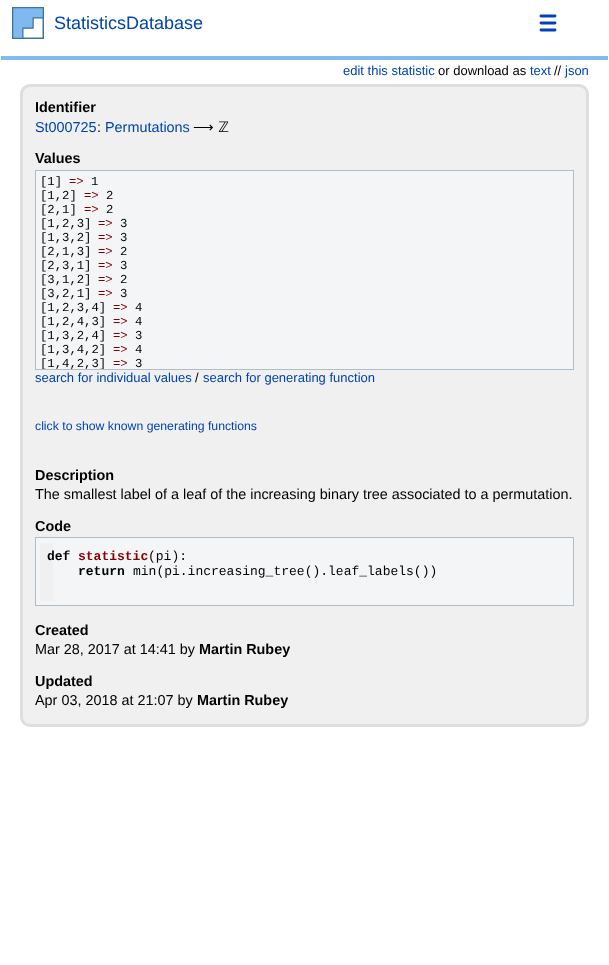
<svg xmlns="http://www.w3.org/2000/svg" width="609" height="965">
	<defs>
		<clipPath id="clip1"><rect x="36" y="171" width="537" height="198" /></clipPath>
	</defs>
	<rect width="100%" height="100%" fill="#FFFFFF" />
	<rect x="1" y="56" width="607" height="4" fill="#81BBF2" />
	<image x="12" y="7" width="32" height="32" href="assets/img1.png" />
	<text x="54" y="29" font-family="Liberation Sans" font-size="18" fill="#0044B3">StatisticsDatabase</text>
	<path d="M541 16H555M541 23H555M541 30H555" fill="none" stroke="#0044B3" stroke-width="2.9" stroke-linecap="round" />
	<text x="343" y="75" font-family="Liberation Sans" font-size="13" fill="#0044B3">edit this statistic</text>
	<text x="438" y="75" font-family="Liberation Sans" font-size="13" fill="#000000">or download as</text>
	<text x="530" y="75" font-family="Liberation Sans" font-size="13" fill="#0044B3">text</text>
	<text x="554" y="75" font-family="Liberation Sans" font-size="13" fill="#000000">//</text>
	<text x="565" y="75" font-family="Liberation Sans" font-size="13" fill="#0044B3">json</text>
	<rect x="21.5" y="85.5" width="566" height="640" rx="8.5" fill="#F0F0F0" stroke="#DEDEDE" stroke-width="3" />
	<text x="35" y="112" font-family="Liberation Sans" font-size="14.4" font-weight="700" fill="#000000">Identifier</text>
	<text x="35" y="132" font-family="Liberation Sans" font-size="14.4" fill="#0044B3">St000725</text>
	<text x="97" y="132" font-family="Liberation Sans" font-size="14.4" fill="#000000">:</text>
	<text x="105" y="132" font-family="Liberation Sans" font-size="14.4" fill="#0044B3">Permutations</text>
	<text x="193" y="132" font-family="DejaVu Sans" font-size="14.4" fill="#000000">⟶ ℤ</text>
	<text x="35" y="163" font-family="Liberation Sans" font-size="14.4" font-weight="700" fill="#000000">Values</text>
	<rect x="35.5" y="170.5" width="538" height="199" fill="#F3F5F7" stroke="#AEBDCC" />
	<text x="40" y="185" font-family="Liberation Mono" font-size="12.25" fill="#000000">[1]</text>
	<text x="69" y="185" font-family="Liberation Mono" font-size="12.25" fill="#800000">=&gt;</text>
	<g font-family="Liberation Mono" font-size="12.25" fill="#000000">
		<text x="91" y="185">1</text>
		<text x="40" y="199">[1,2]</text>
	</g>
	<text x="84" y="199" font-family="Liberation Mono" font-size="12.25" fill="#800000">=&gt;</text>
	<g font-family="Liberation Mono" font-size="12.25" fill="#000000">
		<text x="106" y="199">2</text>
		<text x="40" y="213">[2,1]</text>
	</g>
	<text x="84" y="213" font-family="Liberation Mono" font-size="12.25" fill="#800000">=&gt;</text>
	<g font-family="Liberation Mono" font-size="12.25" fill="#000000">
		<text x="106" y="213">2</text>
		<text x="40" y="227">[1,2,3]</text>
	</g>
	<text x="98" y="227" font-family="Liberation Mono" font-size="12.25" fill="#800000">=&gt;</text>
	<g font-family="Liberation Mono" font-size="12.25" fill="#000000">
		<text x="120" y="227">3</text>
		<text x="40" y="241">[1,3,2]</text>
	</g>
	<text x="98" y="241" font-family="Liberation Mono" font-size="12.25" fill="#800000">=&gt;</text>
	<g font-family="Liberation Mono" font-size="12.25" fill="#000000">
		<text x="120" y="241">3</text>
		<text x="40" y="255">[2,1,3]</text>
	</g>
	<text x="98" y="255" font-family="Liberation Mono" font-size="12.25" fill="#800000">=&gt;</text>
	<g font-family="Liberation Mono" font-size="12.25" fill="#000000">
		<text x="120" y="255">2</text>
		<text x="40" y="269">[2,3,1]</text>
	</g>
	<text x="98" y="269" font-family="Liberation Mono" font-size="12.25" fill="#800000">=&gt;</text>
	<g font-family="Liberation Mono" font-size="12.25" fill="#000000">
		<text x="120" y="269">3</text>
		<text x="40" y="283">[3,1,2]</text>
	</g>
	<text x="98" y="283" font-family="Liberation Mono" font-size="12.25" fill="#800000">=&gt;</text>
	<g font-family="Liberation Mono" font-size="12.25" fill="#000000">
		<text x="120" y="283">2</text>
		<text x="40" y="297">[3,2,1]</text>
	</g>
	<text x="98" y="297" font-family="Liberation Mono" font-size="12.25" fill="#800000">=&gt;</text>
	<g font-family="Liberation Mono" font-size="12.25" fill="#000000">
		<text x="120" y="297">3</text>
		<text x="40" y="311">[1,2,3,4]</text>
	</g>
	<text x="113" y="311" font-family="Liberation Mono" font-size="12.25" fill="#800000">=&gt;</text>
	<g font-family="Liberation Mono" font-size="12.25" fill="#000000">
		<text x="135" y="311">4</text>
		<text x="40" y="325">[1,2,4,3]</text>
	</g>
	<text x="113" y="325" font-family="Liberation Mono" font-size="12.25" fill="#800000">=&gt;</text>
	<g font-family="Liberation Mono" font-size="12.25" fill="#000000">
		<text x="135" y="325">4</text>
		<text x="40" y="339">[1,3,2,4]</text>
	</g>
	<text x="113" y="339" font-family="Liberation Mono" font-size="12.25" fill="#800000">=&gt;</text>
	<g font-family="Liberation Mono" font-size="12.25" fill="#000000">
		<text x="135" y="339">3</text>
		<text x="40" y="353">[1,3,4,2]</text>
	</g>
	<text x="113" y="353" font-family="Liberation Mono" font-size="12.25" fill="#800000">=&gt;</text>
	<text x="135" y="353" font-family="Liberation Mono" font-size="12.25" fill="#000000">4</text>
	<g clip-path="url(#clip1)">
		<text x="40" y="367" font-family="Liberation Mono" font-size="12.25" fill="#000000">[1,4,2,3]</text>
	</g>
	<text x="113" y="367" font-family="Liberation Mono" font-size="12.25" fill="#800000">=&gt;</text>
	<text x="135" y="367" font-family="Liberation Mono" font-size="12.25" fill="#000000">3</text>
	<text x="35" y="382" font-family="Liberation Sans" font-size="13" fill="#0044B3">search for individual values</text>
	<text x="195" y="382" font-family="Liberation Sans" font-size="13" fill="#000000">/</text>
	<text x="203" y="382" font-family="Liberation Sans" font-size="13" fill="#0044B3">search for generating function</text>
	<text x="35" y="430" font-family="Liberation Sans" font-size="12.25" fill="#0044B3">click to show known generating functions</text>
	<text x="35" y="480" font-family="Liberation Sans" font-size="14.4" font-weight="700" fill="#000000">Description</text>
	<text x="35" y="499" font-family="Liberation Sans" font-size="14.4" fill="#000000">The smallest label of a leaf of the increasing binary tree associated to a permutation.</text>
	<text x="35" y="531" font-family="Liberation Sans" font-size="14.4" font-weight="700" fill="#000000">Code</text>
	<rect x="35.5" y="537.5" width="538" height="68" fill="#F3F5F7" stroke="#AEBDCC" />
	<rect x="40" y="543" width="13" height="58" fill="#F0F0F0" />
	<text x="47" y="560" font-family="Liberation Mono" font-size="13" font-weight="700" fill="#000000">def</text>
	<text x="78" y="560" font-family="Liberation Mono" font-size="13" font-weight="700" fill="#880000">statistic</text>
	<text x="148" y="560" font-family="Liberation Mono" font-size="13" fill="#000000">(pi):</text>
	<text x="78" y="575" font-family="Liberation Mono" font-size="13" font-weight="700" fill="#000000">return</text>
	<text x="133" y="575" font-family="Liberation Mono" font-size="13" fill="#000000">min(pi.increasing_tree().leaf_labels())</text>
	<text x="35" y="635" font-family="Liberation Sans" font-size="14.4" font-weight="700" fill="#000000">Created</text>
	<text x="35" y="654" font-family="Liberation Sans" font-size="14.4" fill="#000000">Mar 28, 2017 at 14:41 by</text>
	<g font-family="Liberation Sans" font-size="14.4" font-weight="700" fill="#000000">
		<text x="199" y="654">Martin Rubey</text>
		<text x="35" y="686">Updated</text>
	</g>
	<text x="35" y="705" font-family="Liberation Sans" font-size="14.4" fill="#000000">Apr 03, 2018 at 21:07 by</text>
	<text x="197" y="705" font-family="Liberation Sans" font-size="14.4" font-weight="700" fill="#000000">Martin Rubey</text>
</svg>
